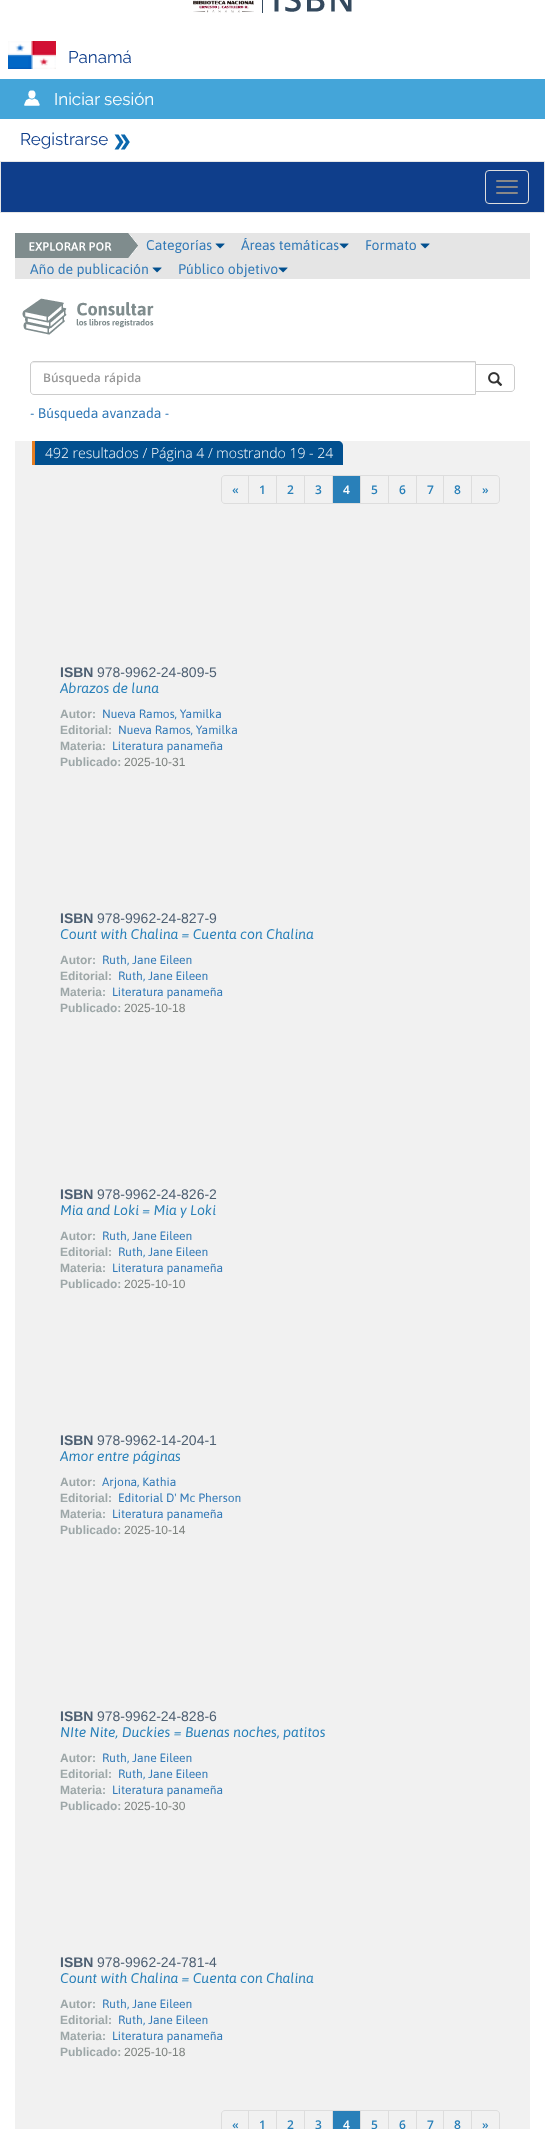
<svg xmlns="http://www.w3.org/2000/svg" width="545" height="2129">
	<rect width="100%" height="100%" fill="#FFFFFF" />
	<image x="193" y="0" width="61" height="13" href="assets/img1.png" />
	<image x="262" y="0" width="90" height="13" href="assets/img2.png" />
	<image x="8" y="41" width="48" height="28" href="assets/img3.png" />
	<text x="68" y="63" font-family="Raleway" font-size="17" font-weight="100" fill="#0F3E8B">Panamá</text>
	<rect x="0" y="79" width="545" height="40" fill="#44A5D9" />
	<image x="24" y="90" width="16" height="16" href="assets/img4.png" />
	<text x="54" y="105" font-family="Raleway" font-size="17" font-weight="100" fill="#FFFFFF">Iniciar sesión</text>
	<text x="20" y="145" font-family="Raleway" font-size="17" font-weight="100" fill="#0F3E8B">Registrarse</text>
	<image x="114" y="134" width="16" height="16" href="assets/img5.png" />
	<rect x="0.5" y="161.5" width="544" height="51" fill="#0F3E8B" stroke="#E7E7E7" />
	<rect x="485.5" y="170.5" width="43" height="33" rx="3.5" fill="none" stroke="#DDDDDD" />
	<rect x="496" y="180" width="22" height="2" rx="1" fill="#888888" />
	<rect x="496" y="186" width="22" height="2" rx="1" fill="#888888" />
	<rect x="496" y="192" width="22" height="2" rx="1" fill="#888888" />
	<rect x="15" y="233" width="515" height="46" fill="#E5E5E5" />
	<image x="15" y="233" width="123" height="25" href="assets/img6.png" />
	<text x="146" y="250" font-family="Asap" font-size="14" fill="#337AB7">Categorías</text>
	<image x="215" y="243" width="10" height="6" href="assets/img7.png" />
	<text x="241" y="250" font-family="Asap" font-size="14" fill="#337AB7">Áreas temáticas</text>
	<image x="339" y="243" width="10" height="6" href="assets/img7.png" />
	<text x="365" y="250" font-family="Asap" font-size="14" fill="#337AB7">Formato</text>
	<image x="420" y="243" width="10" height="6" href="assets/img7.png" />
	<text x="30" y="274" font-family="Asap" font-size="14" fill="#337AB7">Año de publicación</text>
	<image x="152" y="267" width="10" height="6" href="assets/img7.png" />
	<text x="178" y="274" font-family="Asap" font-size="14" fill="#337AB7">Público objetivo</text>
	<image x="278" y="267" width="10" height="6" href="assets/img7.png" />
	<image x="22" y="298" width="132" height="37" href="assets/img8.png" />
	<path d="M34 363H475V362H34C32 362 31 364 31 366C31 364 32 363 34 363Z" fill="#ECECEC" />
	<path d="M34 361.5H475.5V394.5H34C32 394.5 30.5 393 30.5 391V365C30.5 363 32 361.5 34 361.5Z" fill="none" stroke="#CCCCCC" />
	<text x="43" y="382" font-family="Open Sans" font-size="12" font-weight="600" fill="#999999">Búsqueda rápida</text>
	<path d="M475.5 364.5H511C513 364.5 514.5 366 514.5 368V388C514.5 390 513 391.5 511 391.5H475.5Z" fill="#FFFFFF" stroke="#CCCCCC" />
	<image x="488" y="372" width="15" height="14" href="assets/img9.png" />
	<text x="30" y="418" font-family="Asap" font-size="14" fill="#337AB7">- Búsqueda avanzada -</text>
	<rect x="15" y="441" width="515" height="1688" fill="#F1F1F1" />
	<path d="M32 441H338C341 441 343 443 343 446V465H32Z" fill="#02508F" />
	<text x="45" y="458" font-family="Open Sans" font-size="14" font-weight="300" fill="#FFFFFF">492 resultados / Página 4 / mostrando 19 - 24</text>
	<rect x="32" y="441" width="3" height="24" fill="#E67E22" />
	<path d="M225 475.5H248.5V503.5H225C223 503.5 221.5 502 221.5 500V479C221.5 477 223 475.5 225 475.5Z" fill="none" stroke="#DDDDDD" />
	<text x="232" y="494" font-family="Open Sans" font-size="12" font-weight="600" fill="#2980B9">«</text>
	<rect x="248.5" y="475.5" width="28" height="28" fill="none" stroke="#DDDDDD" />
	<text x="259" y="494" font-family="Open Sans" font-size="12" font-weight="600" fill="#2980B9">1</text>
	<rect x="276.5" y="475.5" width="28" height="28" fill="none" stroke="#DDDDDD" />
	<text x="287" y="494" font-family="Open Sans" font-size="12" font-weight="600" fill="#2980B9">2</text>
	<rect x="304.5" y="475.5" width="28" height="28" fill="none" stroke="#DDDDDD" />
	<text x="315" y="494" font-family="Open Sans" font-size="12" font-weight="600" fill="#2980B9">3</text>
	<rect x="332.5" y="475.5" width="28" height="28" fill="#2980B9" stroke="#DDDDDD" />
	<text x="343" y="494" font-family="Open Sans" font-size="12" font-weight="600" fill="#FFFFFF">4</text>
	<rect x="360.5" y="475.5" width="28" height="28" fill="none" stroke="#DDDDDD" />
	<text x="371" y="494" font-family="Open Sans" font-size="12" font-weight="600" fill="#2980B9">5</text>
	<rect x="388.5" y="475.5" width="28" height="28" fill="none" stroke="#DDDDDD" />
	<text x="399" y="494" font-family="Open Sans" font-size="12" font-weight="600" fill="#2980B9">6</text>
	<rect x="416.5" y="475.5" width="27" height="28" fill="none" stroke="#DDDDDD" />
	<text x="427" y="494" font-family="Open Sans" font-size="12" font-weight="600" fill="#2980B9">7</text>
	<rect x="443.5" y="475.5" width="28" height="28" fill="none" stroke="#DDDDDD" />
	<text x="454" y="494" font-family="Open Sans" font-size="12" font-weight="600" fill="#2980B9">8</text>
	<path d="M471.5 475.5H496C498 475.5 499.5 477 499.5 479V500C499.5 502 498 503.5 496 503.5H471.5Z" fill="none" stroke="#DDDDDD" />
	<text x="482" y="494" font-family="Open Sans" font-size="12" font-weight="600" fill="#2980B9">»</text>
	<text x="60" y="677" font-family="Liberation Sans" font-size="14" font-weight="700" fill="#4D5F72">ISBN</text>
	<text x="97" y="677" font-family="Liberation Sans" font-size="14" fill="#4D5F72">978-9962-24-809-5</text>
	<text x="60" y="693" font-family="Asap" font-size="14" font-style="italic" fill="#2980B9">Abrazos de luna</text>
	<text x="60" y="718" font-family="Liberation Sans" font-size="12" font-weight="700" fill="#9DA7A8">Autor:</text>
	<text x="102" y="718" font-family="Asap" font-size="12" fill="#337AB7">Nueva Ramos, Yamilka</text>
	<text x="60" y="734" font-family="Liberation Sans" font-size="12" font-weight="700" fill="#9DA7A8">Editorial:</text>
	<text x="118" y="734" font-family="Asap" font-size="12" fill="#337AB7">Nueva Ramos, Yamilka</text>
	<text x="60" y="750" font-family="Liberation Sans" font-size="12" font-weight="700" fill="#9DA7A8">Materia:</text>
	<text x="112" y="750" font-family="Asap" font-size="12" fill="#337AB7">Literatura panameña</text>
	<text x="60" y="766" font-family="Liberation Sans" font-size="12" font-weight="700" fill="#9DA7A8">Publicado:</text>
	<text x="124" y="766" font-family="Liberation Sans" font-size="12" fill="#7C807D">2025-10-31</text>
	<text x="60" y="923" font-family="Liberation Sans" font-size="14" font-weight="700" fill="#4D5F72">ISBN</text>
	<text x="97" y="923" font-family="Liberation Sans" font-size="14" fill="#4D5F72">978-9962-24-827-9</text>
	<text x="60" y="939" font-family="Asap" font-size="14" font-style="italic" fill="#2980B9">Count with Chalina = Cuenta con Chalina</text>
	<text x="60" y="964" font-family="Liberation Sans" font-size="12" font-weight="700" fill="#9DA7A8">Autor:</text>
	<text x="102" y="964" font-family="Asap" font-size="12" fill="#337AB7">Ruth, Jane Eileen</text>
	<text x="60" y="980" font-family="Liberation Sans" font-size="12" font-weight="700" fill="#9DA7A8">Editorial:</text>
	<text x="118" y="980" font-family="Asap" font-size="12" fill="#337AB7">Ruth, Jane Eileen</text>
	<text x="60" y="996" font-family="Liberation Sans" font-size="12" font-weight="700" fill="#9DA7A8">Materia:</text>
	<text x="112" y="996" font-family="Asap" font-size="12" fill="#337AB7">Literatura panameña</text>
	<text x="60" y="1012" font-family="Liberation Sans" font-size="12" font-weight="700" fill="#9DA7A8">Publicado:</text>
	<text x="124" y="1012" font-family="Liberation Sans" font-size="12" fill="#7C807D">2025-10-18</text>
	<text x="60" y="1199" font-family="Liberation Sans" font-size="14" font-weight="700" fill="#4D5F72">ISBN</text>
	<text x="97" y="1199" font-family="Liberation Sans" font-size="14" fill="#4D5F72">978-9962-24-826-2</text>
	<text x="60" y="1215" font-family="Asap" font-size="14" font-style="italic" fill="#2980B9">Mia and Loki = Mia y Loki</text>
	<text x="60" y="1240" font-family="Liberation Sans" font-size="12" font-weight="700" fill="#9DA7A8">Autor:</text>
	<text x="102" y="1240" font-family="Asap" font-size="12" fill="#337AB7">Ruth, Jane Eileen</text>
	<text x="60" y="1256" font-family="Liberation Sans" font-size="12" font-weight="700" fill="#9DA7A8">Editorial:</text>
	<text x="118" y="1256" font-family="Asap" font-size="12" fill="#337AB7">Ruth, Jane Eileen</text>
	<text x="60" y="1272" font-family="Liberation Sans" font-size="12" font-weight="700" fill="#9DA7A8">Materia:</text>
	<text x="112" y="1272" font-family="Asap" font-size="12" fill="#337AB7">Literatura panameña</text>
	<text x="60" y="1288" font-family="Liberation Sans" font-size="12" font-weight="700" fill="#9DA7A8">Publicado:</text>
	<text x="124" y="1288" font-family="Liberation Sans" font-size="12" fill="#7C807D">2025-10-10</text>
	<text x="60" y="1445" font-family="Liberation Sans" font-size="14" font-weight="700" fill="#4D5F72">ISBN</text>
	<text x="97" y="1445" font-family="Liberation Sans" font-size="14" fill="#4D5F72">978-9962-14-204-1</text>
	<text x="60" y="1461" font-family="Asap" font-size="14" font-style="italic" fill="#2980B9">Amor entre páginas</text>
	<text x="60" y="1486" font-family="Liberation Sans" font-size="12" font-weight="700" fill="#9DA7A8">Autor:</text>
	<text x="102" y="1486" font-family="Asap" font-size="12" fill="#337AB7">Arjona, Kathia</text>
	<text x="60" y="1502" font-family="Liberation Sans" font-size="12" font-weight="700" fill="#9DA7A8">Editorial:</text>
	<text x="118" y="1502" font-family="Asap" font-size="12" fill="#337AB7">Editorial D' Mc Pherson</text>
	<text x="60" y="1518" font-family="Liberation Sans" font-size="12" font-weight="700" fill="#9DA7A8">Materia:</text>
	<text x="112" y="1518" font-family="Asap" font-size="12" fill="#337AB7">Literatura panameña</text>
	<text x="60" y="1534" font-family="Liberation Sans" font-size="12" font-weight="700" fill="#9DA7A8">Publicado:</text>
	<text x="124" y="1534" font-family="Liberation Sans" font-size="12" fill="#7C807D">2025-10-14</text>
	<text x="60" y="1721" font-family="Liberation Sans" font-size="14" font-weight="700" fill="#4D5F72">ISBN</text>
	<text x="97" y="1721" font-family="Liberation Sans" font-size="14" fill="#4D5F72">978-9962-24-828-6</text>
	<text x="60" y="1737" font-family="Asap" font-size="14" font-style="italic" fill="#2980B9">NIte Nite, Duckies = Buenas noches, patitos</text>
	<text x="60" y="1762" font-family="Liberation Sans" font-size="12" font-weight="700" fill="#9DA7A8">Autor:</text>
	<text x="102" y="1762" font-family="Asap" font-size="12" fill="#337AB7">Ruth, Jane Eileen</text>
	<text x="60" y="1778" font-family="Liberation Sans" font-size="12" font-weight="700" fill="#9DA7A8">Editorial:</text>
	<text x="118" y="1778" font-family="Asap" font-size="12" fill="#337AB7">Ruth, Jane Eileen</text>
	<text x="60" y="1794" font-family="Liberation Sans" font-size="12" font-weight="700" fill="#9DA7A8">Materia:</text>
	<text x="112" y="1794" font-family="Asap" font-size="12" fill="#337AB7">Literatura panameña</text>
	<text x="60" y="1810" font-family="Liberation Sans" font-size="12" font-weight="700" fill="#9DA7A8">Publicado:</text>
	<text x="124" y="1810" font-family="Liberation Sans" font-size="12" fill="#7C807D">2025-10-30</text>
	<text x="60" y="1967" font-family="Liberation Sans" font-size="14" font-weight="700" fill="#4D5F72">ISBN</text>
	<text x="97" y="1967" font-family="Liberation Sans" font-size="14" fill="#4D5F72">978-9962-24-781-4</text>
	<text x="60" y="1983" font-family="Asap" font-size="14" font-style="italic" fill="#2980B9">Count with Chalina = Cuenta con Chalina</text>
	<text x="60" y="2008" font-family="Liberation Sans" font-size="12" font-weight="700" fill="#9DA7A8">Autor:</text>
	<text x="102" y="2008" font-family="Asap" font-size="12" fill="#337AB7">Ruth, Jane Eileen</text>
	<text x="60" y="2024" font-family="Liberation Sans" font-size="12" font-weight="700" fill="#9DA7A8">Editorial:</text>
	<text x="118" y="2024" font-family="Asap" font-size="12" fill="#337AB7">Ruth, Jane Eileen</text>
	<text x="60" y="2040" font-family="Liberation Sans" font-size="12" font-weight="700" fill="#9DA7A8">Materia:</text>
	<text x="112" y="2040" font-family="Asap" font-size="12" fill="#337AB7">Literatura panameña</text>
	<text x="60" y="2056" font-family="Liberation Sans" font-size="12" font-weight="700" fill="#9DA7A8">Publicado:</text>
	<text x="124" y="2056" font-family="Liberation Sans" font-size="12" fill="#7C807D">2025-10-18</text>
	<path d="M225 2110.5H248.5V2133.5H225C223 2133.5 221.5 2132 221.5 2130V2114C221.5 2112 223 2110.5 225 2110.5Z" fill="none" stroke="#DDDDDD" />
	<text x="232" y="2129" font-family="Open Sans" font-size="12" font-weight="600" fill="#2980B9">«</text>
	<rect x="248.5" y="2110.5" width="28" height="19" fill="none" stroke="#DDDDDD" />
	<text x="259" y="2129" font-family="Open Sans" font-size="12" font-weight="600" fill="#2980B9">1</text>
	<rect x="276.5" y="2110.5" width="28" height="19" fill="none" stroke="#DDDDDD" />
	<text x="287" y="2129" font-family="Open Sans" font-size="12" font-weight="600" fill="#2980B9">2</text>
	<rect x="304.5" y="2110.5" width="28" height="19" fill="none" stroke="#DDDDDD" />
	<text x="315" y="2129" font-family="Open Sans" font-size="12" font-weight="600" fill="#2980B9">3</text>
	<rect x="332.5" y="2110.5" width="28" height="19" fill="#2980B9" stroke="#DDDDDD" />
	<text x="343" y="2129" font-family="Open Sans" font-size="12" font-weight="600" fill="#FFFFFF">4</text>
	<rect x="360.5" y="2110.5" width="28" height="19" fill="none" stroke="#DDDDDD" />
	<text x="371" y="2129" font-family="Open Sans" font-size="12" font-weight="600" fill="#2980B9">5</text>
	<rect x="388.5" y="2110.5" width="28" height="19" fill="none" stroke="#DDDDDD" />
	<text x="399" y="2129" font-family="Open Sans" font-size="12" font-weight="600" fill="#2980B9">6</text>
	<rect x="416.5" y="2110.5" width="27" height="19" fill="none" stroke="#DDDDDD" />
	<text x="427" y="2129" font-family="Open Sans" font-size="12" font-weight="600" fill="#2980B9">7</text>
	<rect x="443.5" y="2110.5" width="28" height="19" fill="none" stroke="#DDDDDD" />
	<text x="454" y="2129" font-family="Open Sans" font-size="12" font-weight="600" fill="#2980B9">8</text>
	<path d="M471.5 2110.5H496C498 2110.5 499.5 2112 499.5 2114V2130C499.5 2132 498 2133.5 496 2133.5H471.5Z" fill="none" stroke="#DDDDDD" />
	<text x="482" y="2129" font-family="Open Sans" font-size="12" font-weight="600" fill="#2980B9">»</text>
</svg>
